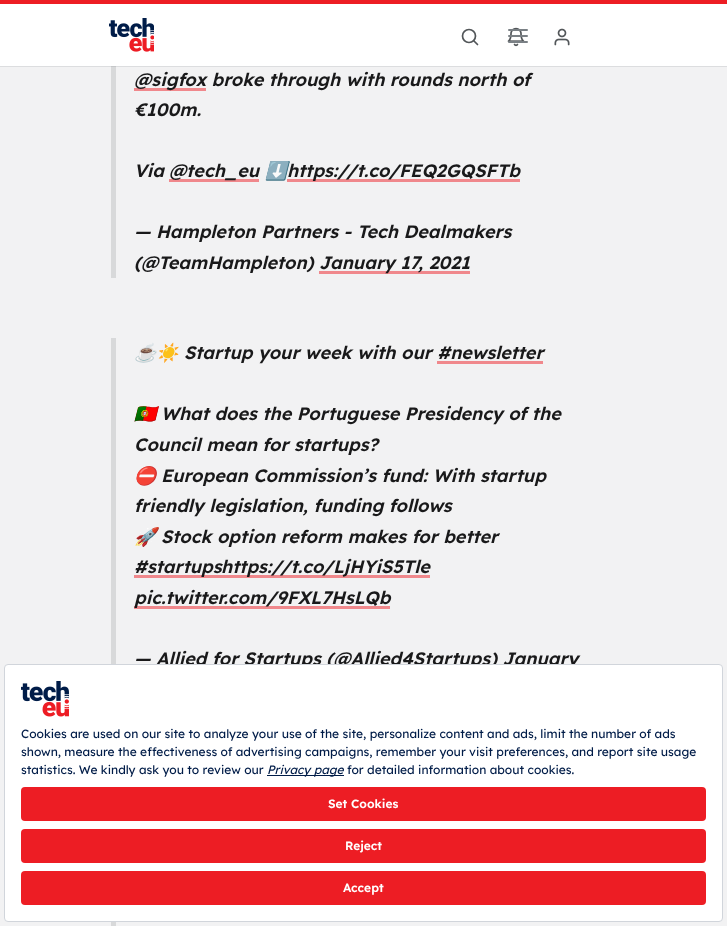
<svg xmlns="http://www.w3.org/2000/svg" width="727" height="926">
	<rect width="100%" height="100%" fill="#F2F2F3" />
	<rect x="0" y="66" width="727" height="1" fill="#DCDDDF" />
	<rect x="0" y="4" width="727" height="62" fill="#FFFFFF" />
	<rect x="0" y="0" width="727" height="4" fill="#ED1D24" />
	<image x="109" y="18" width="45" height="34" href="assets/img1.png" />
	<image x="507" y="27" width="18" height="20" href="assets/img2.png" />
	<rect x="508" y="29" width="20" height="2" rx="1" fill="#7A8085" />
	<rect x="508" y="35" width="20" height="2" rx="1" fill="#7A8085" />
	<rect x="508" y="41" width="20" height="2" rx="1" fill="#7A8085" />
	<circle cx="469" cy="36" r="6.5" fill="none" stroke="#525659" stroke-width="1.7" />
	<path d="M477.5 44.5L474 41" fill="none" stroke="#525659" stroke-width="1.7" stroke-linecap="round" stroke-linejoin="round" />
	<image x="554" y="28" width="16" height="18" href="assets/img3.png" />
	<rect x="111" y="67" width="5" height="211" fill="#D8D9DA" />
	<rect x="111" y="66" width="5" height="1" fill="#C5C7C9" />
	<rect x="134" y="88" width="72" height="3" fill="#F0888C" />
	<g font-family="Lexend Deca" font-size="18" font-weight="600" font-style="italic" fill="#19191A">
		<text x="134" y="86">@sigfox broke through with rounds north of</text>
		<text x="134" y="116">€100m.</text>
		<text x="134" y="177">Via</text>
	</g>
	<rect x="169" y="179" width="90" height="3" fill="#F0888C" />
	<text x="169" y="177" font-family="Lexend Deca" font-size="18" font-weight="600" font-style="italic" fill="#19191A">@tech_eu</text>
	<text x="265" y="177" font-family="Noto Color Emoji" font-size="18" font-weight="700" font-style="italic" fill="#19191A">⬇️</text>
	<rect x="287" y="179" width="233" height="3" fill="#F0888C" />
	<g font-family="Lexend Deca" font-size="18" font-weight="600" font-style="italic" fill="#19191A">
		<text x="287" y="177">https://t.co/FEQ2GQSFTb</text>
		<text x="134" y="238">— Hampleton Partners - Tech Dealmakers</text>
		<text x="134" y="269">(@TeamHampleton)</text>
	</g>
	<rect x="319" y="271" width="151" height="3" fill="#F0888C" />
	<text x="319" y="269" font-family="Lexend Deca" font-size="18" font-weight="600" font-style="italic" fill="#19191A">January 17, 2021</text>
	<rect x="111" y="338" width="5" height="326" fill="#D8D9DA" />
	<text x="134" y="359" font-family="Noto Color Emoji" font-size="18" font-weight="700" font-style="italic" fill="#19191A">☕☀️</text>
	<text x="184" y="359" font-family="Lexend Deca" font-size="18" font-weight="600" font-style="italic" fill="#19191A">Startup your week with our #newsletter</text>
	<rect x="437" y="361" width="106" height="3" fill="#F0888C" />
	<text x="134" y="420" font-family="Noto Color Emoji" font-size="18" font-weight="700" font-style="italic" fill="#19191A">🇵🇹</text>
	<g font-family="Lexend Deca" font-size="18" font-weight="600" font-style="italic" fill="#19191A">
		<text x="161" y="420">What does the Portuguese Presidency of the</text>
		<text x="134" y="451">Council mean for startups?</text>
	</g>
	<text x="134" y="482" font-family="Noto Color Emoji" font-size="18" font-weight="700" font-style="italic" fill="#19191A">⛔</text>
	<g font-family="Lexend Deca" font-size="18" font-weight="600" font-style="italic" fill="#19191A">
		<text x="161" y="482">European Commission’s fund: With startup</text>
		<text x="134" y="512">friendly legislation, funding follows</text>
	</g>
	<text x="134" y="543" font-family="Noto Color Emoji" font-size="18" font-weight="700" font-style="italic" fill="#19191A">🚀</text>
	<text x="161" y="543" font-family="Lexend Deca" font-size="18" font-weight="600" font-style="italic" fill="#19191A">Stock option reform makes for better</text>
	<rect x="134" y="575" width="87" height="3" fill="#F0888C" />
	<text x="134" y="573" font-family="Lexend Deca" font-size="18" font-weight="600" font-style="italic" fill="#19191A">#startups</text>
	<rect x="221" y="575" width="209" height="3" fill="#F0888C" />
	<text x="221" y="573" font-family="Lexend Deca" font-size="18" font-weight="600" font-style="italic" fill="#19191A">https://t.co/LjHYiS5Tle</text>
	<rect x="134" y="606" width="256" height="3" fill="#F0888C" />
	<g font-family="Lexend Deca" font-size="18" font-weight="600" font-style="italic" fill="#19191A">
		<text x="134" y="604">pic.twitter.com/9FXL7HsLQb</text>
		<text x="134" y="665">— Allied for Startups (@Allied4Startups) January</text>
	</g>
	<rect x="111" y="922" width="5" height="4" fill="#D8D9DA" />
	<rect x="4.5" y="664.5" width="718" height="257" rx="3.5" fill="#FFFFFF" stroke="#D1D5DB" />
	<image x="21" y="681" width="48" height="36" href="assets/img4.png" />
	<g font-family="Lexend Deca" font-size="12" fill="#001C48">
		<text x="21" y="738">Cookies are used on our site to analyze your use of the site, personalize content and ads, limit the number of ads</text>
		<text x="21" y="756">shown, measure the effectiveness of advertising campaigns, remember your visit preferences, and report site usage</text>
		<text x="21" y="774">statistics. We kindly ask you to review our</text>
	</g>
	<rect x="267" y="775" width="77" height="1" fill="#001C48" />
	<text x="267" y="774" font-family="Lexend Deca" font-size="12" font-style="italic" fill="#001C48">Privacy page</text>
	<text x="347" y="774" font-family="Lexend Deca" font-size="12" fill="#001C48">for detailed information about cookies.</text>
	<rect x="21" y="787" width="685" height="34" rx="4" fill="#ED1D24" />
	<text x="328" y="808" font-family="Lexend Deca" font-size="12" font-weight="600" fill="#FFFFFF">Set Cookies</text>
	<rect x="21" y="829" width="685" height="34" rx="4" fill="#ED1D24" />
	<text x="345" y="850" font-family="Lexend Deca" font-size="12" font-weight="600" fill="#FFFFFF">Reject</text>
	<rect x="21" y="871" width="685" height="34" rx="4" fill="#ED1D24" />
	<text x="343" y="892" font-family="Lexend Deca" font-size="12" font-weight="600" fill="#FFFFFF">Accept</text>
</svg>
